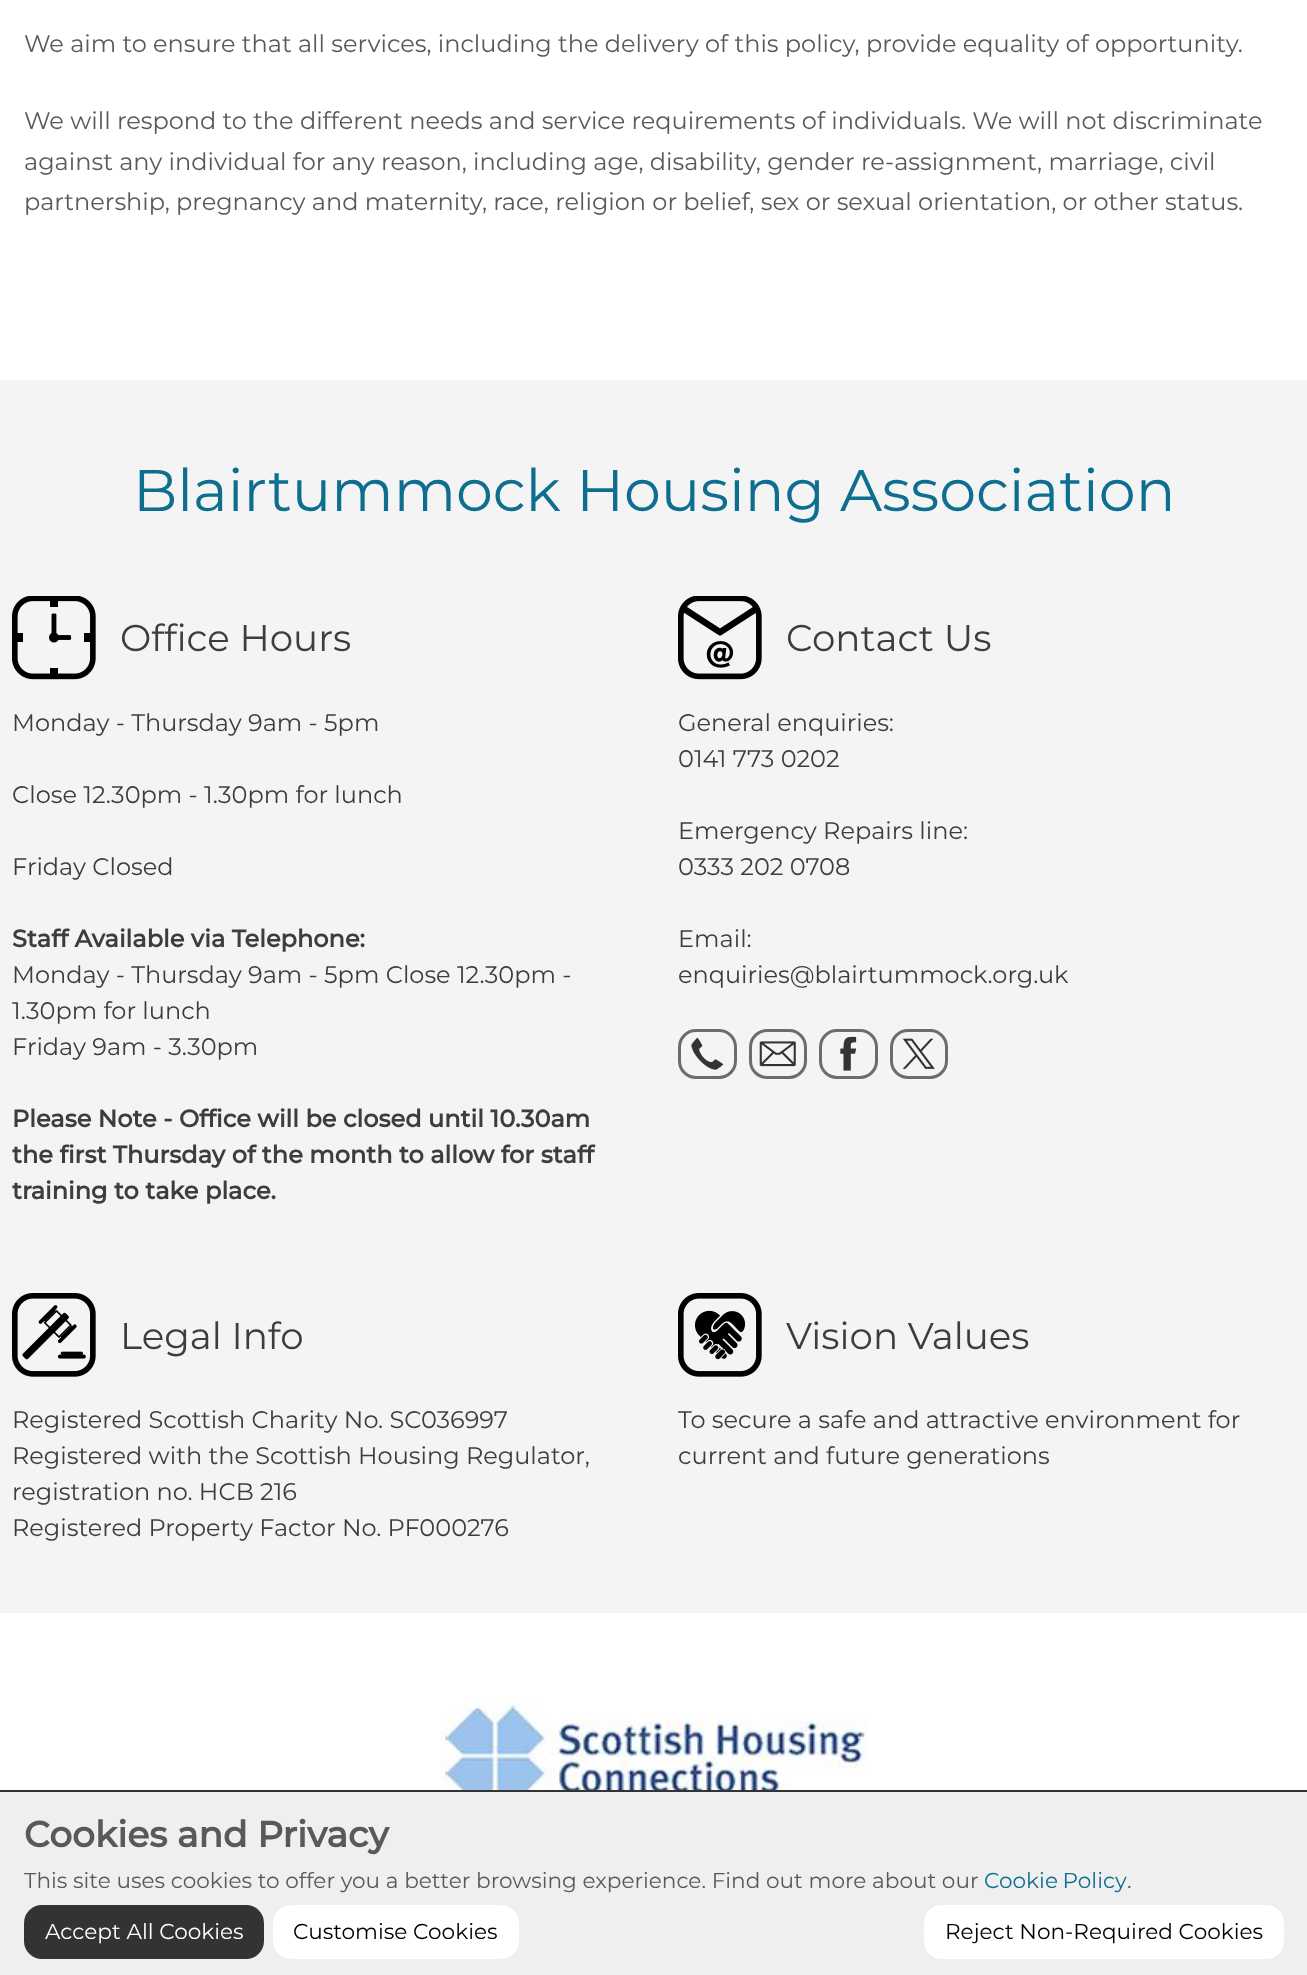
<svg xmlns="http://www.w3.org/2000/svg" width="1307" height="1975">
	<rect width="100%" height="100%" fill="#FFFFFF" />
	<g font-family="Montserrat" font-size="24" font-weight="100" fill="#595959">
		<text x="24" y="52">We aim to ensure that all services, including the delivery of this policy, provide equality of opportunity.</text>
		<text x="24" y="129">We will respond to the different needs and service requirements of individuals. We will not discriminate</text>
		<text x="24" y="170">against any individual for any reason, including age, disability, gender re-assignment, marriage, civil</text>
		<text x="24" y="210">partnership, pregnancy and maternity, race, religion or belief, sex or sexual orientation, or other status.</text>
	</g>
	<rect x="0" y="380" width="1307" height="1233" fill="#F4F4F4" />
	<text x="133" y="511" font-family="Montserrat" font-size="58.75" font-weight="100" fill="#0D6E8F">Blairtummock Housing Association</text>
	<image x="12" y="596" width="84" height="84" href="assets/img1.png" />
	<text x="120" y="651" font-family="Montserrat" font-size="37.25" font-weight="100" fill="#3D3D3D">Office Hours</text>
	<g font-family="Montserrat" font-size="24" font-weight="100" fill="#3D3D3D">
		<text x="12" y="731">Monday - Thursday 9am - 5pm</text>
		<text x="12" y="803">Close 12.30pm - 1.30pm for lunch</text>
		<text x="12" y="875">Friday Closed</text>
	</g>
	<text x="12" y="947" font-family="Montserrat" font-size="24" font-weight="700" fill="#3D3D3D">Staff Available via Telephone:</text>
	<g font-family="Montserrat" font-size="24" font-weight="100" fill="#3D3D3D">
		<text x="12" y="983">Monday - Thursday 9am - 5pm Close 12.30pm -</text>
		<text x="12" y="1019">1.30pm for lunch</text>
		<text x="12" y="1055">Friday 9am - 3.30pm</text>
	</g>
	<g font-family="Montserrat" font-size="24" font-weight="700" fill="#3D3D3D">
		<text x="12" y="1127">Please Note - Office will be closed until 10.30am</text>
		<text x="12" y="1163">the first Thursday of the month to allow for staff</text>
		<text x="12" y="1199">training to take place.</text>
	</g>
	<image x="678" y="596" width="84" height="84" href="assets/img2.png" />
	<text x="786" y="651" font-family="Montserrat" font-size="37.25" font-weight="100" fill="#3D3D3D">Contact Us</text>
	<g font-family="Montserrat" font-size="24" font-weight="100" fill="#3D3D3D">
		<text x="678" y="731">General enquiries:</text>
		<text x="678" y="767">0141 773 0202</text>
		<text x="678" y="839">Emergency Repairs line:</text>
		<text x="678" y="875">0333 202 0708</text>
		<text x="678" y="947">Email:</text>
		<text x="678" y="983">enquiries@blairtummock.org.uk</text>
	</g>
	<image x="691" y="1037" width="33" height="33" href="assets/img3.png" />
	<rect x="679.5" y="1030.5" width="56" height="47" rx="16.5" fill="none" stroke="#6C6C6C" stroke-width="3" />
	<image x="759" y="1041" width="37" height="26" href="assets/img4.png" />
	<rect x="750.5" y="1030.5" width="55" height="47" rx="16.5" fill="none" stroke="#6C6C6C" stroke-width="3" />
	<image x="840" y="1036" width="17" height="35" href="assets/img5.png" />
	<rect x="820.5" y="1030.5" width="56" height="47" rx="16.5" fill="none" stroke="#6C6C6C" stroke-width="3" />
	<image x="902" y="1038" width="33" height="31" href="assets/img6.png" />
	<rect x="891.5" y="1030.5" width="55" height="47" rx="16.5" fill="none" stroke="#6C6C6C" stroke-width="3" />
	<image x="12" y="1293" width="84" height="84" href="assets/img7.png" />
	<text x="120" y="1349" font-family="Montserrat" font-size="37.25" font-weight="100" fill="#3D3D3D">Legal Info</text>
	<g font-family="Montserrat" font-size="24" font-weight="100" fill="#3D3D3D">
		<text x="12" y="1428">Registered Scottish Charity No. SC036997</text>
		<text x="12" y="1464">Registered with the Scottish Housing Regulator,</text>
		<text x="12" y="1500">registration no. HCB 216</text>
		<text x="12" y="1536">Registered Property Factor No. PF000276</text>
	</g>
	<image x="678" y="1293" width="84" height="84" href="assets/img8.png" />
	<text x="786" y="1349" font-family="Montserrat" font-size="37.25" font-weight="100" fill="#3D3D3D">Vision Values</text>
	<g font-family="Montserrat" font-size="24" font-weight="100" fill="#3D3D3D">
		<text x="678" y="1428">To secure a safe and attractive environment for</text>
		<text x="678" y="1464">current and future generations</text>
	</g>
	<image x="441" y="1699" width="426" height="91" href="assets/img9.png" />
	<rect x="0" y="1792" width="1307" height="183" fill="#EFEFEF" />
	<rect x="0" y="1790" width="1307" height="2" fill="#333333" />
	<text x="24" y="1847" font-family="Montserrat" font-size="36" font-weight="700" fill="#595959">Cookies and Privacy</text>
	<text x="24" y="1888" font-family="Montserrat" font-size="21.6" font-weight="100" fill="#595959">This site uses cookies to offer you a better browsing experience. Find out more about our</text>
	<text x="984" y="1888" word-spacing="-1" font-family="Montserrat" font-size="21.6" font-weight="100" fill="#0D6E8F">Cookie Policy</text>
	<text x="1127" y="1888" font-family="Montserrat" font-size="21.6" font-weight="100" fill="#595959">.</text>
	<rect x="24" y="1905" width="240" height="54" rx="18" fill="#333333" />
	<text x="45" y="1939" font-family="Montserrat" font-size="21.6" font-weight="100" fill="#FFFFFF">Accept All Cookies</text>
	<rect x="273" y="1905" width="246" height="54" rx="18" fill="#FFFFFF" />
	<text x="293" y="1939" font-family="Montserrat" font-size="21.6" font-weight="100" fill="#000000">Customise Cookies</text>
	<rect x="924" y="1905" width="360" height="54" rx="18" fill="#FFFFFF" />
	<text x="945" y="1939" font-family="Montserrat" font-size="21.6" font-weight="100" fill="#000000">Reject Non-Required Cookies</text>
</svg>
